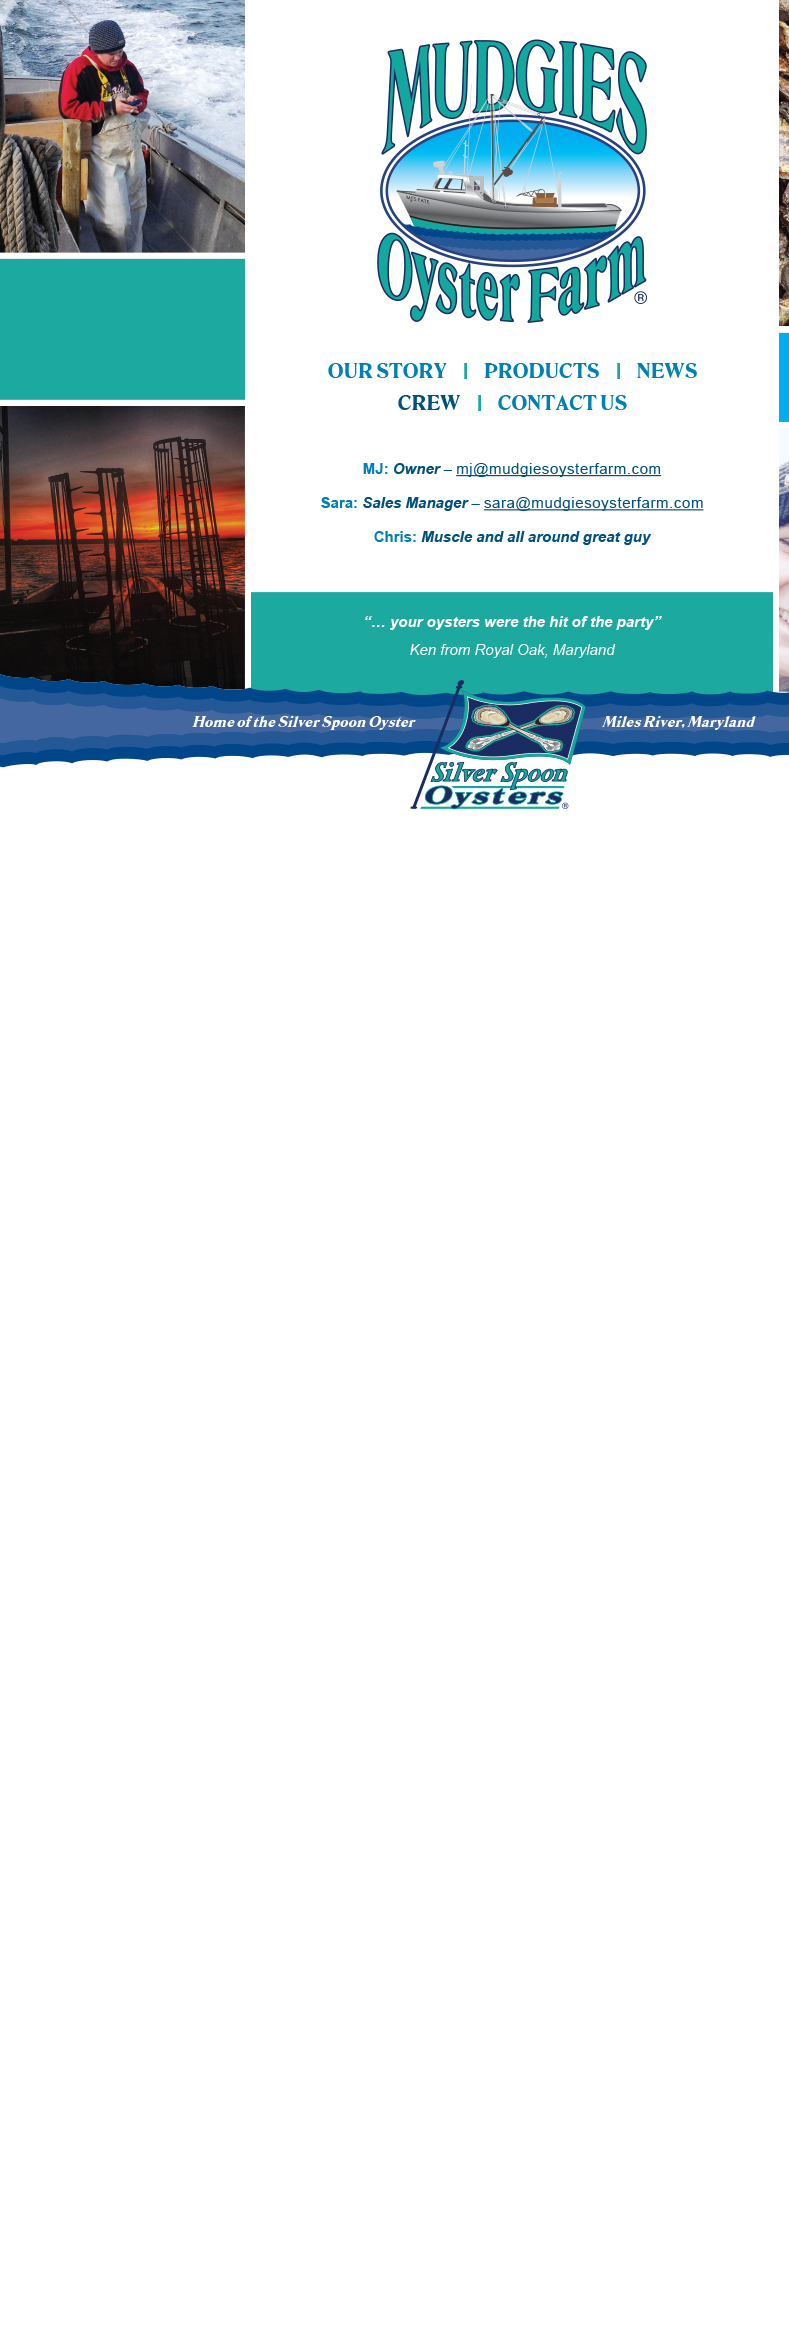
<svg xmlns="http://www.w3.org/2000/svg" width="789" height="2337">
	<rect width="100%" height="100%" fill="#FFFFFF" />
	<image x="0" y="0" width="789" height="810" href="assets/img1.png" />
</svg>
